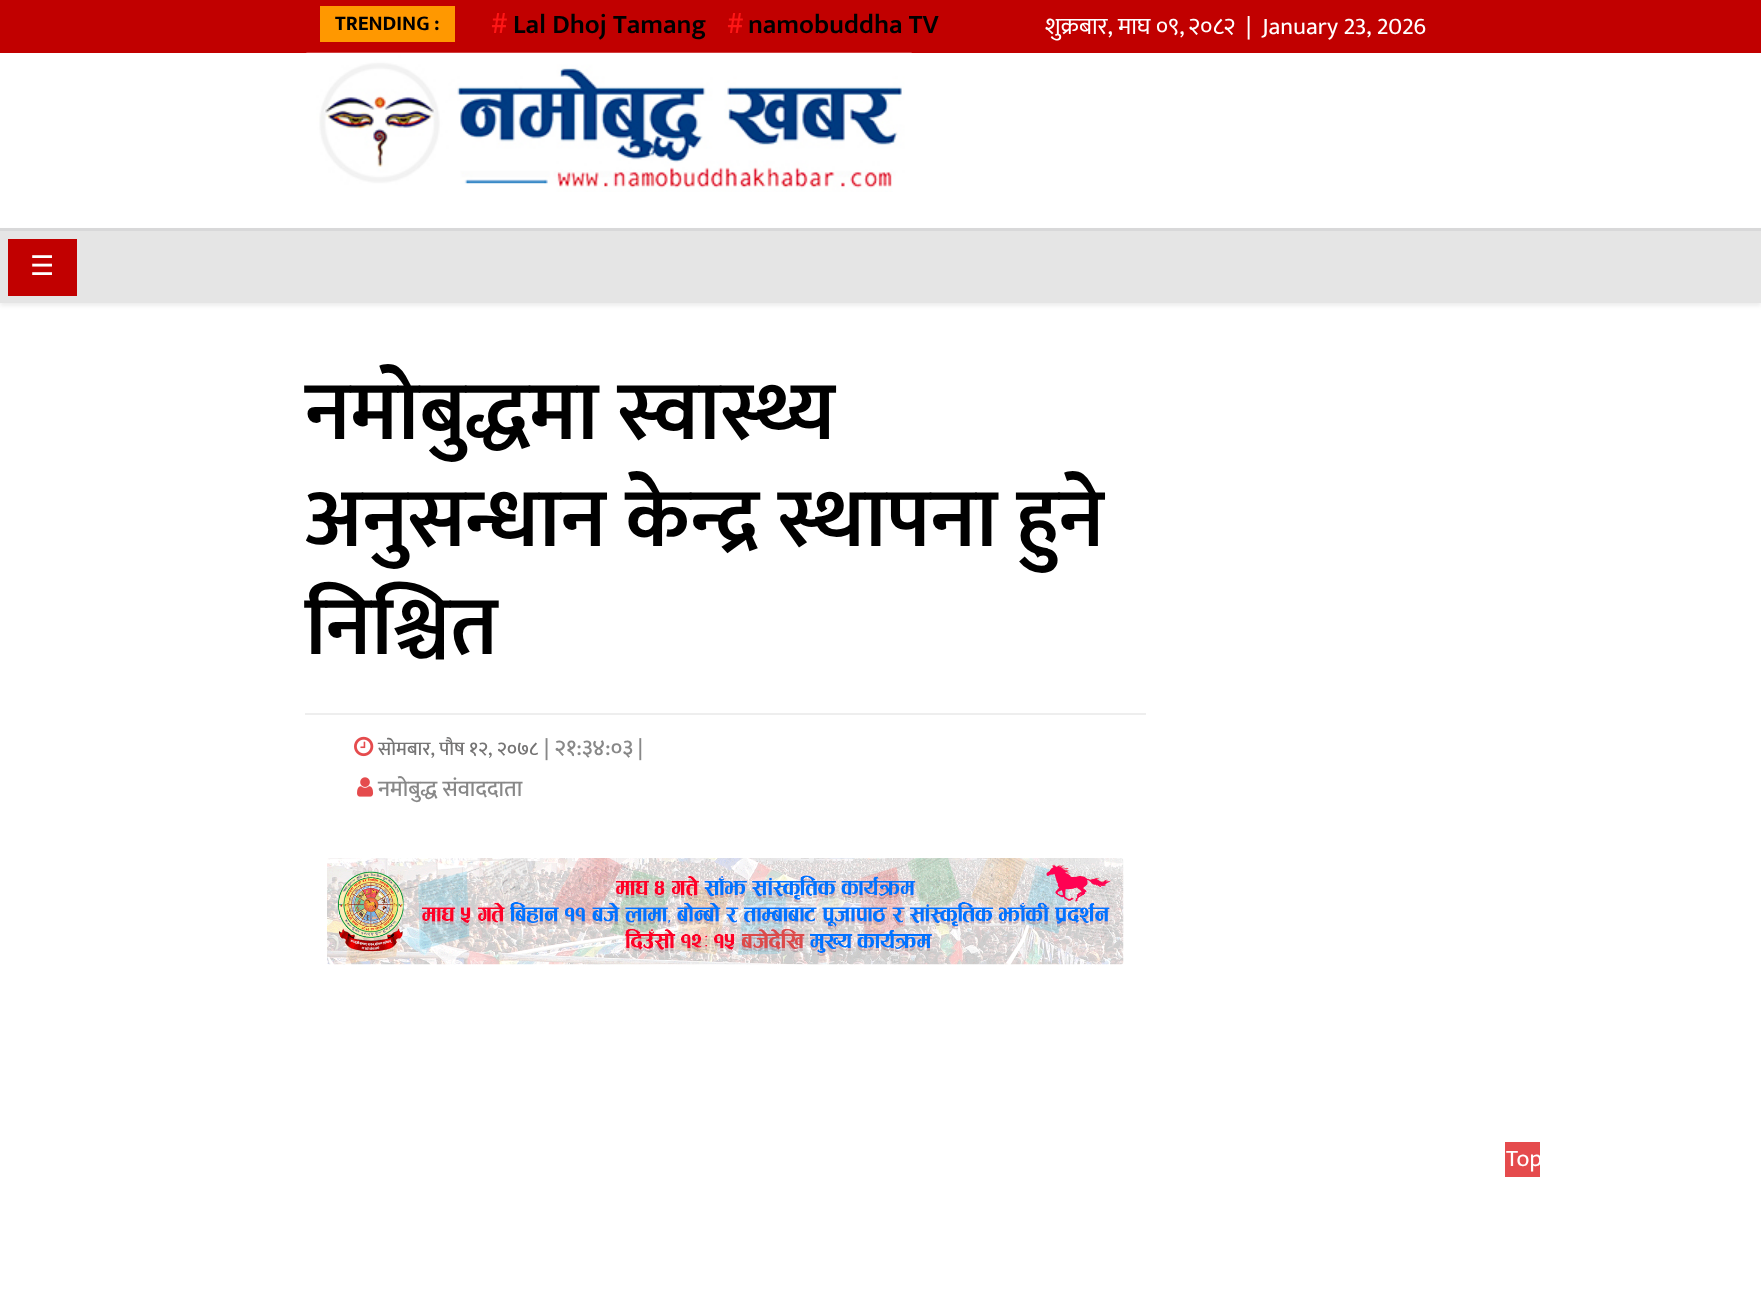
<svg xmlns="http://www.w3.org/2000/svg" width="1761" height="1301">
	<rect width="100%" height="100%" fill="#FFFFFF" />
	<rect x="0" y="0" width="1761" height="53" fill="#C10000" />
	<rect x="320" y="6" width="135" height="36" fill="#FF9800" />
	<text x="335" y="30" font-family="Ek Mukta" font-size="21" font-weight="700" fill="#000000">TRENDING :</text>
	<text x="491" y="33" font-family="Ek Mukta" font-size="27" font-weight="600" fill="#FF1616">#</text>
	<text x="513" y="33" font-family="Ek Mukta" font-size="27" font-weight="600" fill="#000000">Lal Dhoj Tamang</text>
	<text x="727" y="33" font-family="Ek Mukta" font-size="27" font-weight="600" fill="#FF1616">#</text>
	<text x="748" y="33" font-family="Ek Mukta" font-size="27" font-weight="600" fill="#000000">namobuddha TV</text>
	<g font-family="Ek Mukta" font-size="24" fill="#FFFFFF">
		<text x="1045" y="34">शुक्रबार,</text>
		<text x="1118" y="34">माघ ०९,</text>
		<text x="1188" y="34">२०८२</text>
		<text x="1246" y="34">|</text>
		<text x="1262" y="34">January 23, 2026</text>
	</g>
	<image x="306" y="52" width="606" height="140" href="assets/img1.png" />
	<rect x="0" y="231" width="1761" height="75" fill="#000000" fill-opacity="0.07" filter="blur(2px)" />
	<rect x="0" y="231" width="1761" height="72" fill="#E5E5E5" />
	<rect x="0" y="228" width="1761" height="3" fill="#D8D8D9" />
	<rect x="8" y="239" width="69" height="57" fill="#C10000" />
	<text x="30" y="275" font-family="DejaVu Sans" font-size="27" fill="#FFFFFF">☰</text>
	<rect x="305" y="713" width="841" height="2" fill="#EEEEEE" />
	<g font-family="Ek Mukta" font-size="84" font-weight="600" fill="#000000">
		<text x="305" y="439">नमोबुद्धमा स्वास्थ्य</text>
		<text x="305" y="546">अनुसन्धान केन्द्र स्थापना हुने</text>
		<text x="305" y="654">निश्चित</text>
	</g>
	<image x="354" y="736" width="20" height="21" href="assets/img2.png" />
	<text x="378" y="755" font-family="Ek Mukta" font-size="19.5" font-weight="500" fill="#757474">सोमबार, पौष १२, २०७८</text>
	<text x="544" y="755" font-family="Ek Mukta" font-size="22.5" font-weight="500" fill="#888888">| २१:३४:०३ |</text>
	<image x="357" y="777" width="17" height="20" href="assets/img3.png" />
	<text x="378" y="796" font-family="Ek Mukta" font-size="22.5" font-weight="500" fill="#888888">नमोबुद्ध संवाददाता</text>
	<image x="327" y="858" width="797" height="107" href="assets/img4.png" />
	<rect x="1502.5" y="1139.5" width="40" height="40" fill="#E54B4D" stroke="#FFFFFF" stroke-width="5" />
	<text x="1506" y="1166" font-family="Ek Mukta" font-size="24" fill="#FFFFFF">Top</text>
</svg>
